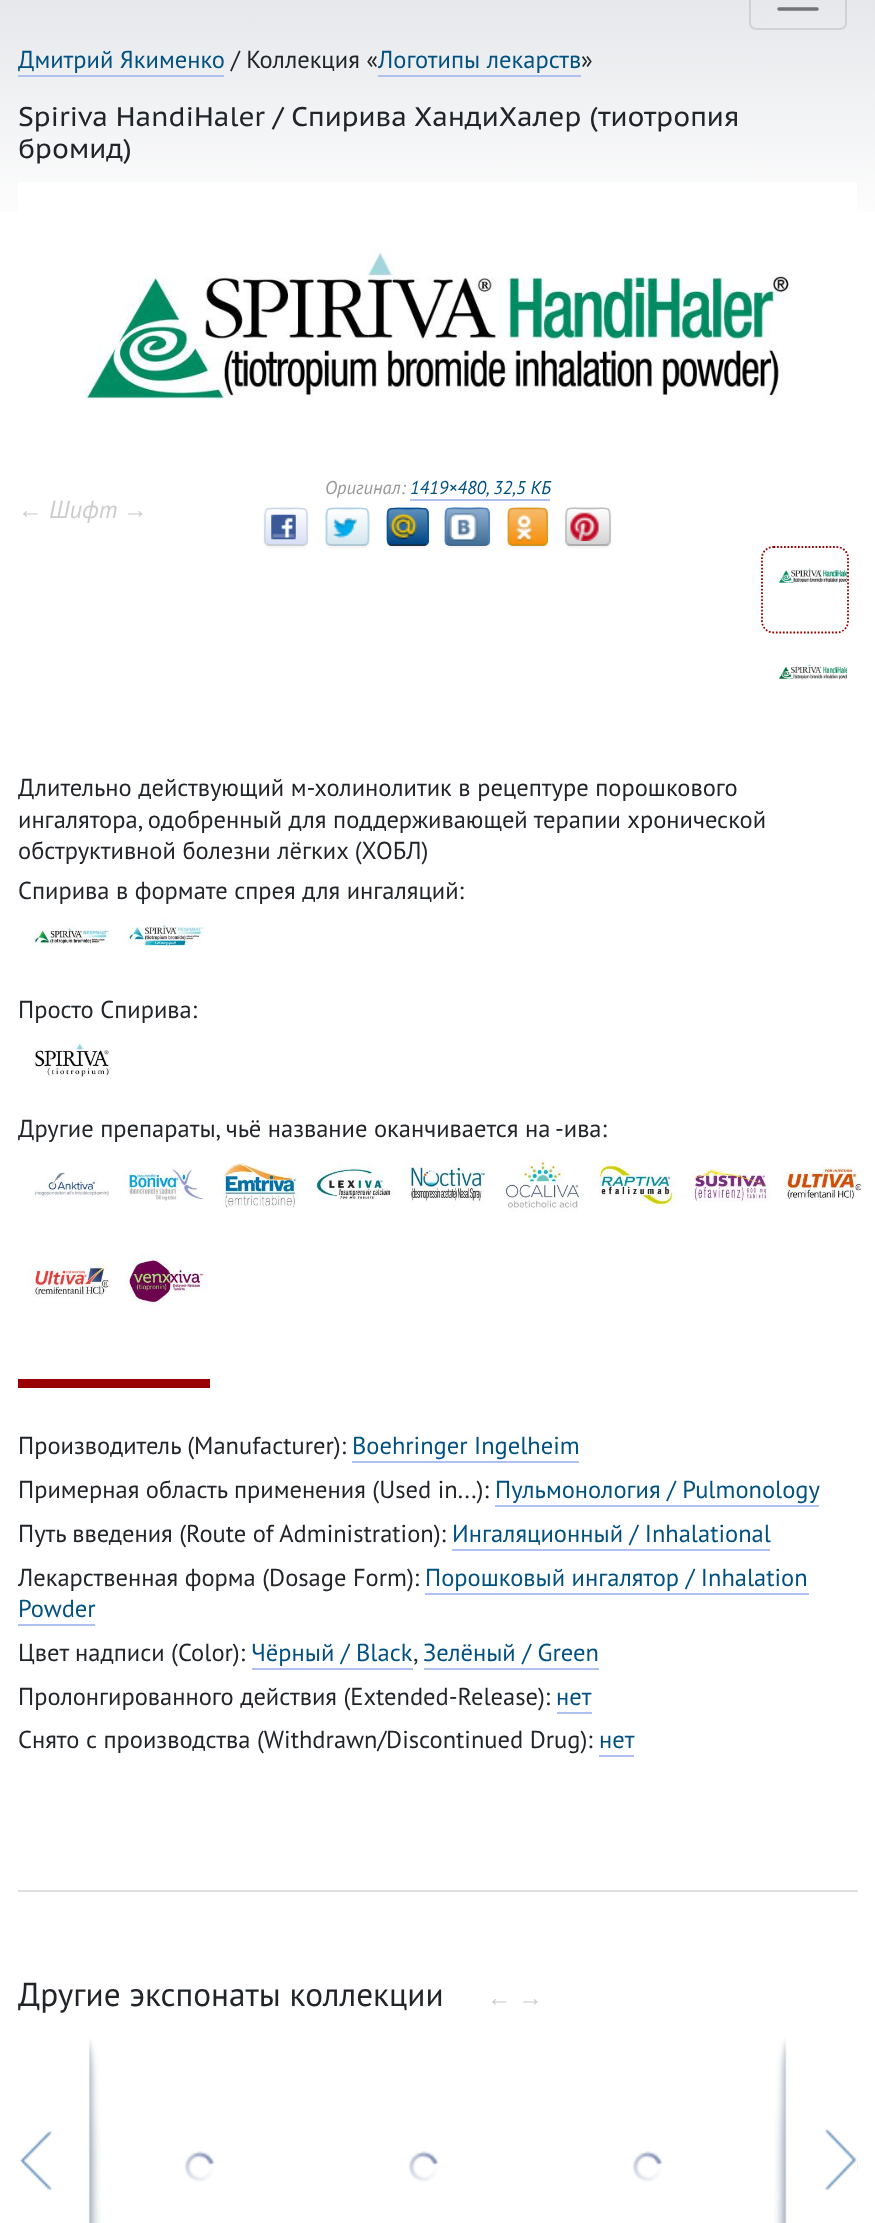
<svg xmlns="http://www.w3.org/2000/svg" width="875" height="2223">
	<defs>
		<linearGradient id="g1" gradientUnits="userSpaceOnUse" x1="438" y1="-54" x2="438" y2="235"><stop offset="0" stop-color="#E0E2E6" /><stop offset="1" stop-color="#FFFFFF" /></linearGradient>
		<clipPath id="clip1"><rect x="264" y="508" width="44" height="38" rx="5" /></clipPath>
		<linearGradient id="g2" gradientUnits="userSpaceOnUse" x1="286" y1="474" x2="286" y2="509"><stop offset="0" stop-color="#FFFFFF" /><stop offset="1" stop-color="#D8DEF4" /></linearGradient>
		<linearGradient id="g3" gradientUnits="userSpaceOnUse" x1="286" y1="509" x2="286" y2="544"><stop offset="0" stop-color="#FFFFFF" /><stop offset="1" stop-color="#D8DEF4" /></linearGradient>
		<linearGradient id="g4" gradientUnits="userSpaceOnUse" x1="286" y1="544" x2="286" y2="579"><stop offset="0" stop-color="#FFFFFF" /><stop offset="1" stop-color="#D8DEF4" /></linearGradient>
		<clipPath id="clip2"><rect x="326" y="508" width="43" height="38" rx="5" /></clipPath>
		<linearGradient id="g5" gradientUnits="userSpaceOnUse" x1="347" y1="474" x2="347" y2="509"><stop offset="0" stop-color="#FFFFFF" /><stop offset="1" stop-color="#D5E6EF" /></linearGradient>
		<linearGradient id="g6" gradientUnits="userSpaceOnUse" x1="347" y1="509" x2="347" y2="544"><stop offset="0" stop-color="#FFFFFF" /><stop offset="1" stop-color="#D5E6EF" /></linearGradient>
		<linearGradient id="g7" gradientUnits="userSpaceOnUse" x1="347" y1="544" x2="347" y2="579"><stop offset="0" stop-color="#FFFFFF" /><stop offset="1" stop-color="#D5E6EF" /></linearGradient>
		<clipPath id="clip3"><rect x="387" y="508" width="42" height="38" rx="5" /></clipPath>
		<linearGradient id="g8" gradientUnits="userSpaceOnUse" x1="408" y1="474" x2="408" y2="509"><stop offset="0" stop-color="#5D90BA" /><stop offset="1" stop-color="#004584" /></linearGradient>
		<linearGradient id="g9" gradientUnits="userSpaceOnUse" x1="408" y1="509" x2="408" y2="544"><stop offset="0" stop-color="#5D90BA" /><stop offset="1" stop-color="#004584" /></linearGradient>
		<linearGradient id="g10" gradientUnits="userSpaceOnUse" x1="408" y1="544" x2="408" y2="579"><stop offset="0" stop-color="#5D90BA" /><stop offset="1" stop-color="#004584" /></linearGradient>
		<clipPath id="clip4"><rect x="445" y="508" width="45" height="38" rx="5" /></clipPath>
		<linearGradient id="g11" gradientUnits="userSpaceOnUse" x1="467" y1="474" x2="467" y2="509"><stop offset="0" stop-color="#8FAECF" /><stop offset="1" stop-color="#436F96" /></linearGradient>
		<linearGradient id="g12" gradientUnits="userSpaceOnUse" x1="467" y1="509" x2="467" y2="544"><stop offset="0" stop-color="#8FAECF" /><stop offset="1" stop-color="#436F96" /></linearGradient>
		<linearGradient id="g13" gradientUnits="userSpaceOnUse" x1="467" y1="544" x2="467" y2="579"><stop offset="0" stop-color="#8FAECF" /><stop offset="1" stop-color="#436F96" /></linearGradient>
		<clipPath id="clip5"><rect x="508" y="508" width="40" height="38" rx="5" /></clipPath>
		<linearGradient id="g14" gradientUnits="userSpaceOnUse" x1="528" y1="474" x2="528" y2="509"><stop offset="0" stop-color="#F6BB6D" /><stop offset="1" stop-color="#F6900B" /></linearGradient>
		<linearGradient id="g15" gradientUnits="userSpaceOnUse" x1="528" y1="509" x2="528" y2="544"><stop offset="0" stop-color="#F6BB6D" /><stop offset="1" stop-color="#F6900B" /></linearGradient>
		<linearGradient id="g16" gradientUnits="userSpaceOnUse" x1="528" y1="544" x2="528" y2="579"><stop offset="0" stop-color="#F6BB6D" /><stop offset="1" stop-color="#F6900B" /></linearGradient>
		<clipPath id="clip6"><rect x="565" y="508" width="46" height="38" rx="5" /></clipPath>
		<linearGradient id="g17" gradientUnits="userSpaceOnUse" x1="588" y1="474" x2="588" y2="509"><stop offset="0" stop-color="#FEFEFE" /><stop offset="1" stop-color="#D3D3D3" /></linearGradient>
		<linearGradient id="g18" gradientUnits="userSpaceOnUse" x1="588" y1="509" x2="588" y2="544"><stop offset="0" stop-color="#FEFEFE" /><stop offset="1" stop-color="#D3D3D3" /></linearGradient>
		<linearGradient id="g19" gradientUnits="userSpaceOnUse" x1="588" y1="544" x2="588" y2="579"><stop offset="0" stop-color="#FEFEFE" /><stop offset="1" stop-color="#D3D3D3" /></linearGradient>
	</defs>
	<rect width="100%" height="100%" fill="#FFFFFF" />
	<rect x="0" y="0" width="875" height="212" fill="url(#g1)" />
	<rect x="750" y="-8" width="96" height="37" rx="6" fill="none" stroke="#000000" stroke-opacity="0.1" stroke-width="2" />
	<path d="M779-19H817M779-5H817M779 9H817" fill="none" stroke="#747476" stroke-width="3.5" stroke-linecap="round" />
	<text x="18" y="68" font-family="PT Sans" font-size="24.5" fill="#005080">Дмитрий Якименко</text>
	<rect x="18" y="75" width="206" height="2" fill="#B0C0F0" />
	<text x="231" y="68" font-family="PT Sans" font-size="24.5" fill="#212529">/ Коллекция «</text>
	<text x="378" y="68" font-family="PT Sans" font-size="24.5" fill="#005080">Логотипы лекарств</text>
	<rect x="378" y="75" width="203" height="2" fill="#B0C0F0" />
	<text x="581" y="68" font-family="PT Sans" font-size="24.5" fill="#212529">»</text>
	<g font-family="PT Sans Caption" font-size="26.95" fill="#212529">
		<text x="18" y="126">Spiriva HandiHaler / Спирива ХандиХалер (тиотропия</text>
		<text x="18" y="158">бромид)</text>
	</g>
	<image x="18" y="182" width="839" height="217" href="assets/img1.png" />
	<text x="325" y="494" font-family="PT Sans" font-size="18.5" font-style="italic" fill="#999999">Оригинал:</text>
	<text x="410" y="494" font-family="PT Sans" font-size="18.5" font-style="italic" fill="#005080">1419×480, 32,5 КБ</text>
	<rect x="410" y="499" width="140" height="2" fill="#B0C0F0" />
	<rect x="264" y="509" width="44" height="39" rx="5" fill="#000000" fill-opacity="0.05" filter="blur(1px)" />
	<g clip-path="url(#clip1)">
		<rect x="264" y="508" width="44" height="1" fill="url(#g2)" />
		<rect x="264" y="509" width="44" height="35" fill="url(#g3)" />
		<rect x="264" y="544" width="44" height="2" fill="url(#g4)" />
	</g>
	<path d="M306 544C305 544.5 304 545 303 545H269.5C268.5 545 267 544.5 266.5 544" fill="none" stroke="#BDC2CB" stroke-opacity="0.8" stroke-width="1.8" />
	<path d="M266.5 544C264.5 542 265 538.5 265 536V527C265 504.5 263 508.5 286 508.5C309.5 508.5 307 504.5 307 527V536C307 538.5 308 542 306 544" fill="none" stroke="#CAD4E7" stroke-opacity="0.8" stroke-width="1.8" />
	<image x="271" y="514" width="25" height="26" href="assets/img2.png" />
	<rect x="326" y="509" width="43" height="39" rx="5" fill="#000000" fill-opacity="0.05" filter="blur(1px)" />
	<g clip-path="url(#clip2)">
		<rect x="326" y="508" width="43" height="1" fill="url(#g5)" />
		<rect x="326" y="509" width="43" height="35" fill="url(#g6)" />
		<rect x="326" y="544" width="43" height="2" fill="url(#g7)" />
	</g>
	<path d="M367 544C366.5 544.5 365 545 364 545H331C329.5 545 328.5 544.5 327.5 544" fill="none" stroke="#9EBACC" stroke-opacity="0.8" stroke-width="1.8" />
	<path d="M327.5 544C325.5 542 326.5 538.5 326.5 536V527C326.5 504.5 324 508.5 347.5 508.5C370.5 508.5 368.5 504.5 368.5 527V536C368.5 538.5 369 542 367 544" fill="none" stroke="#A4CCE5" stroke-opacity="0.8" stroke-width="1.8" />
	<image x="332" y="518" width="25" height="20" href="assets/img3.png" />
	<rect x="387" y="509" width="42" height="39" rx="5" fill="#000000" fill-opacity="0.05" filter="blur(1px)" />
	<g clip-path="url(#clip3)">
		<rect x="387" y="508" width="42" height="1" fill="url(#g8)" />
		<rect x="387" y="509" width="42" height="35" fill="url(#g9)" />
		<rect x="387" y="544" width="42" height="2" fill="url(#g10)" />
	</g>
	<path d="M426.5 544C426 544.5 424.5 545 423.5 545H392C391 545 389.5 544.5 389 544" fill="none" stroke="#031B30" stroke-opacity="0.8" stroke-width="1.8" />
	<path d="M389 544C387 542 387.5 538.5 387.5 536V527C387.5 505 385 508.5 408 508.5C430.5 508.5 428 505 428 527V536C428 538.5 428.5 542 426.5 544" fill="none" stroke="#0B5499" stroke-opacity="0.8" stroke-width="1.8" />
	<image x="390" y="513" width="27" height="27" href="assets/img4.png" />
	<rect x="445" y="509" width="45" height="39" rx="5" fill="#000000" fill-opacity="0.05" filter="blur(1px)" />
	<g clip-path="url(#clip4)">
		<rect x="445" y="508" width="45" height="1" fill="url(#g11)" />
		<rect x="445" y="509" width="45" height="35" fill="url(#g12)" />
		<rect x="445" y="544" width="45" height="2" fill="url(#g13)" />
	</g>
	<path d="M488 544C487 544.5 486 545 485 545H450C448.5 545 447.5 544.5 446.5 544" fill="none" stroke="#34587F" stroke-opacity="0.8" stroke-width="1.8" />
	<path d="M446.5 544C444.5 542 445.5 538.5 445.5 536V527C445.5 504 443 508.5 467 508.5C491.5 508.5 489 504 489 527V536C489 538.5 490 542 488 544" fill="none" stroke="#4E83C1" stroke-opacity="0.8" stroke-width="1.8" />
	<image x="448" y="513" width="30" height="28" href="assets/img5.png" />
	<rect x="508" y="509" width="40" height="39" rx="5" fill="#000000" fill-opacity="0.05" filter="blur(1px)" />
	<g clip-path="url(#clip5)">
		<rect x="508" y="508" width="40" height="1" fill="url(#g14)" />
		<rect x="508" y="509" width="40" height="35" fill="url(#g15)" />
		<rect x="508" y="544" width="40" height="2" fill="url(#g16)" />
	</g>
	<path d="M545.5 544C545 544.5 543.5 545 542.5 545H513C511.5 545 510.5 544.5 509.5 544" fill="none" stroke="#C58907" stroke-opacity="0.8" stroke-width="1.8" />
	<path d="M509.5 544C507.5 542 508.5 538.5 508.5 536V527C508.5 505 505.5 508.5 527.5 508.5C549.5 508.5 547 505 547 527V536C547 538.5 547.5 542 545.5 544" fill="none" stroke="#D99A26" stroke-opacity="0.8" stroke-width="1.8" />
	<image x="516" y="514" width="16" height="27" href="assets/img6.png" />
	<rect x="565" y="509" width="46" height="39" rx="5" fill="#000000" fill-opacity="0.05" filter="blur(1px)" />
	<g clip-path="url(#clip6)">
		<rect x="565" y="508" width="46" height="1" fill="url(#g17)" />
		<rect x="565" y="509" width="46" height="35" fill="url(#g18)" />
		<rect x="565" y="544" width="46" height="2" fill="url(#g19)" />
	</g>
	<path d="M608.5 544C608 544.5 606.5 545 605.5 545H570.5C569.5 545 568 544.5 567.5 544" fill="none" stroke="#ADADAD" stroke-width="1.8" />
	<path d="M567.5 544C565.5 542 566 538.5 566 536V527C566 504 564 508.5 588 508.5C612 508.5 610 504 610 527V536C610 538.5 610.5 542 608.5 544" fill="none" stroke="#BABABA" stroke-opacity="0.8" stroke-width="1.8" />
	<image x="570" y="512" width="29" height="29" href="assets/img7.png" />
	<text x="18" y="518" font-family="Liberation Sans" font-size="24.5" font-style="italic" fill="#CCCCCC">←</text>
	<text x="49" y="518" font-family="PT Sans" font-size="24.5" font-style="italic" fill="#CCCCCC">Шифт</text>
	<text x="123" y="518" font-family="Liberation Sans" font-size="24.5" font-style="italic" fill="#CCCCCC">→</text>
	<path d="M773.5 547H836.5C843 547 848 552 848 558V621C848 627.5 843 632.5 836.5 632.5H773.5C767 632.5 762 627.5 762 621V558C762 552 767 547 773.5 547Z" fill="none" stroke="#990000" stroke-width="1.8" stroke-dasharray="1.75 1.75" />
	<image x="778" y="567" width="69" height="16" href="assets/img8.png" />
	<image x="778" y="663" width="69" height="17" href="assets/img9.png" />
	<g font-family="PT Sans" font-size="24.5" fill="#212529">
		<text x="18" y="796">Длительно действующий м-холинолитик в рецептуре порошкового</text>
		<text x="18" y="828">ингалятора, одобренный для поддерживающей терапии хронической</text>
		<text x="18" y="859">обструктивной болезни лёгких (ХОБЛ)</text>
		<text x="18" y="899">Спирива в формате спрея для ингаляций:</text>
	</g>
	<image x="30" y="924" width="82" height="25" href="assets/img10.png" />
	<image x="123" y="917" width="83" height="29" href="assets/img11.png" />
	<text x="18" y="1018" font-family="PT Sans" font-size="24.5" fill="#212529">Просто Спирива:</text>
	<image x="33" y="1036" width="79" height="43" href="assets/img12.png" />
	<text x="18" y="1137" font-family="PT Sans" font-size="24.5" fill="#212529">Другие препараты, чьё название оканчивается на -ива:</text>
	<image x="34" y="1170" width="75" height="28" href="assets/img13.png" />
	<image x="123" y="1166" width="82" height="35" href="assets/img14.png" />
	<image x="217" y="1158" width="83" height="51" href="assets/img15.png" />
	<rect x="300" y="1153" width="86" height="85" rx="11" fill="none" stroke="#FFFFFF" stroke-width="2" />
	<image x="310" y="1162" width="84" height="38" href="assets/img16.png" />
	<image x="404" y="1161" width="84" height="42" href="assets/img17.png" />
	<image x="499" y="1155" width="84" height="57" href="assets/img18.png" />
	<image x="593" y="1159" width="83" height="47" href="assets/img19.png" />
	<image x="691" y="1168" width="79" height="35" href="assets/img20.png" />
	<image x="780" y="1162" width="84" height="38" href="assets/img21.png" />
	<image x="28" y="1260" width="84" height="38" href="assets/img22.png" />
	<image x="125" y="1253" width="82" height="56" href="assets/img23.png" />
	<rect x="18" y="1379" width="192" height="9" fill="#990000" />
	<text x="18" y="1454" font-family="PT Sans" font-size="24.5" fill="#212529">Производитель (Manufacturer):</text>
	<text x="352" y="1454" font-family="PT Sans" font-size="24.5" fill="#005080">Boehringer Ingelheim</text>
	<rect x="352" y="1461" width="227" height="2" fill="#B0C0F0" />
	<text x="18" y="1498" font-family="PT Sans" font-size="24.5" fill="#212529">Примерная область применения (Used in...):</text>
	<text x="495" y="1498" font-family="PT Sans" font-size="24.5" fill="#005080">Пульмонология / Pulmonology</text>
	<rect x="495" y="1505" width="324" height="2" fill="#B0C0F0" />
	<text x="18" y="1542" font-family="PT Sans" font-size="24.5" fill="#212529">Путь введения (Route of Administration):</text>
	<text x="452" y="1542" font-family="PT Sans" font-size="24.5" fill="#005080">Ингаляционный / Inhalational</text>
	<rect x="452" y="1549" width="318" height="2" fill="#B0C0F0" />
	<text x="18" y="1586" font-family="PT Sans" font-size="24.5" fill="#212529">Лекарственная форма (Dosage Form):</text>
	<text x="425" y="1586" font-family="PT Sans" font-size="24.5" fill="#005080">Порошковый ингалятор / Inhalation</text>
	<rect x="425" y="1593" width="384" height="2" fill="#B0C0F0" />
	<text x="18" y="1617" font-family="PT Sans" font-size="24.5" fill="#005080">Powder</text>
	<rect x="18" y="1624" width="77" height="2" fill="#B0C0F0" />
	<text x="18" y="1661" font-family="PT Sans" font-size="24.5" fill="#212529">Цвет надписи (Color):</text>
	<text x="251" y="1661" font-family="PT Sans" font-size="24.5" fill="#005080">Чёрный / Black</text>
	<rect x="252" y="1668" width="161" height="2" fill="#B0C0F0" />
	<text x="413" y="1661" font-family="PT Sans" font-size="24.5" fill="#212529">,</text>
	<text x="423" y="1661" font-family="PT Sans" font-size="24.5" fill="#005080">Зелёный / Green</text>
	<rect x="424" y="1668" width="175" height="2" fill="#B0C0F0" />
	<text x="18" y="1705" font-family="PT Sans" font-size="24.5" fill="#212529">Пролонгированного действия (Extended-Release):</text>
	<text x="556" y="1705" font-family="PT Sans" font-size="24.5" fill="#005080">нет</text>
	<rect x="557" y="1712" width="35" height="2" fill="#B0C0F0" />
	<text x="18" y="1748" font-family="PT Sans" font-size="24.5" fill="#212529">Снято с производства (Withdrawn/Discontinued Drug):</text>
	<text x="599" y="1748" font-family="PT Sans" font-size="24.5" fill="#005080">нет</text>
	<rect x="599" y="1755" width="35" height="2" fill="#B0C0F0" />
	<rect x="18" y="1890" width="840" height="2" fill="#DDDDDD" />
	<text x="18" y="2006" font-family="PT Sans" font-size="33.25" fill="#212529">Другие экспонаты коллекции</text>
	<text x="487" y="2006" font-family="Liberation Sans" font-size="24.5" font-style="italic" fill="#CCCCCC">← →</text>
	<image x="20" y="2038" width="81" height="185" href="assets/img24.png" />
	<image x="857" y="2160" width="1" height="13" href="assets/img28.png" />
	<image x="774" y="2038" width="84" height="185" href="assets/img25.png" />
	<image x="184" y="2151" width="30" height="31" href="assets/img26.png" />
	<image x="408" y="2151" width="30" height="31" href="assets/img27.png" />
	<image x="632" y="2151" width="30" height="31" href="assets/img26.png" />
</svg>
